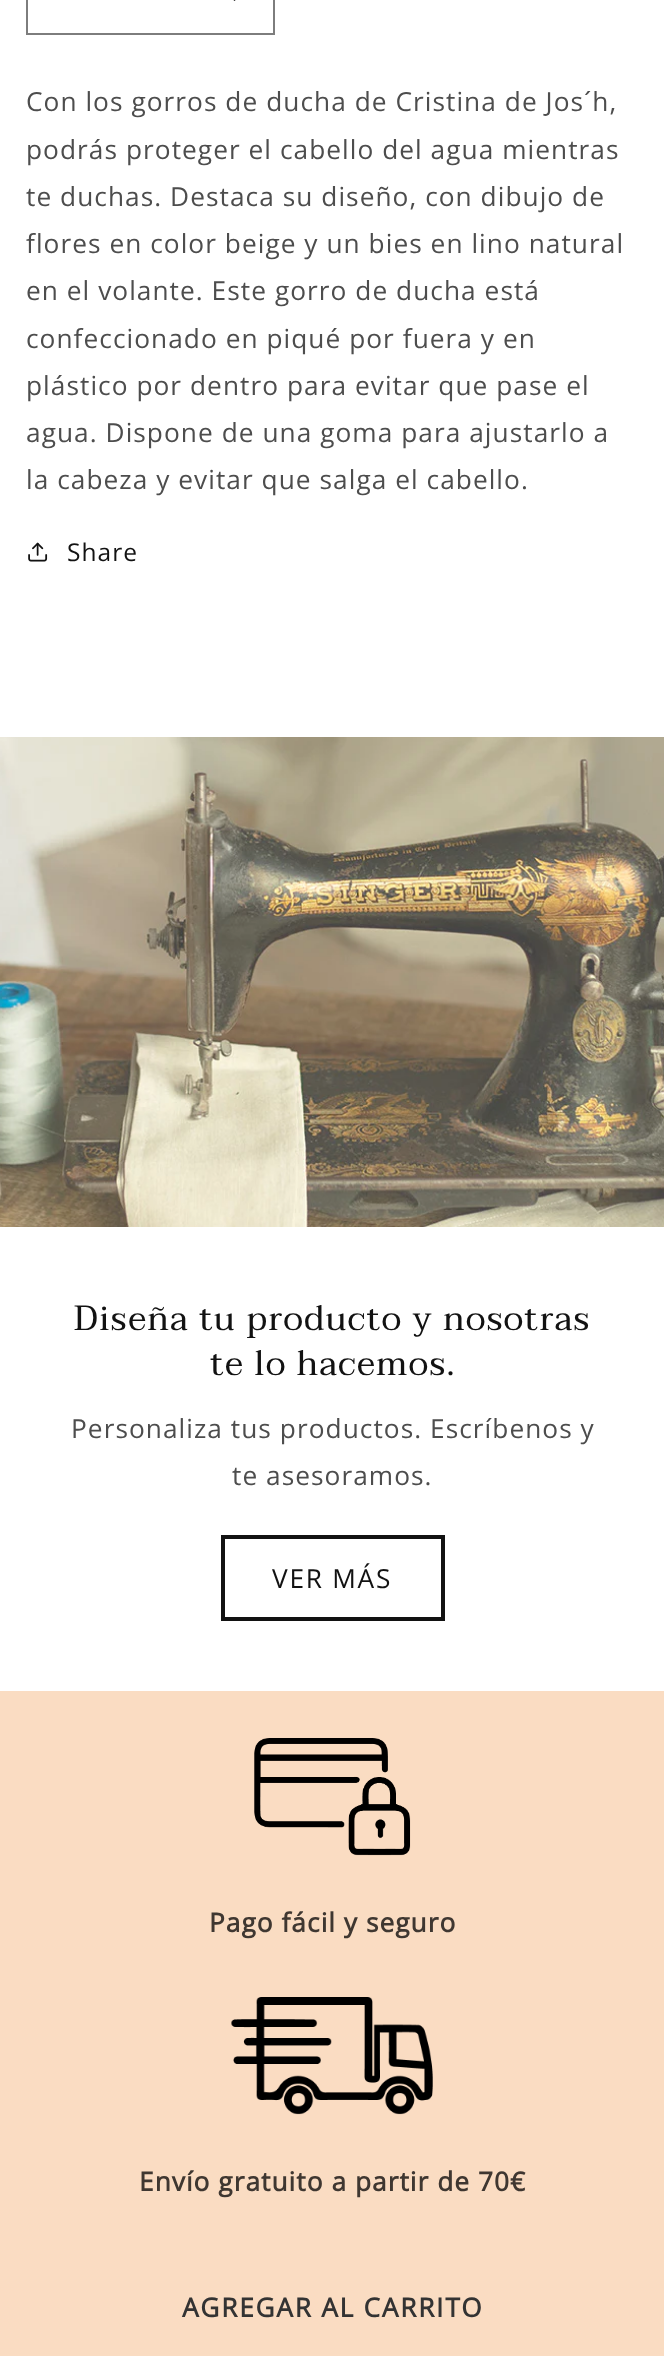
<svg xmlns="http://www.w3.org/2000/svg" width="664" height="2356">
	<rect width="100%" height="100%" fill="#FFFFFF" />
	<image x="233" y="0" width="3" height="1" href="assets/img1.png" />
	<rect x="27" y="-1" width="247" height="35" fill="none" stroke="#7D7D7D" stroke-width="2" />
	<g font-family="Open Sans" font-size="26.25" letter-spacing="1.05" fill="#4D4D4D">
		<text x="26" y="111">Con los gorros de ducha de Cristina de Jos´h,</text>
		<text x="26" y="159">podrás proteger el cabello del agua mientras</text>
		<text x="26" y="206">te duchas. Destaca su diseño, con dibujo de</text>
		<text x="26" y="253">flores en color beige y un bies en lino natural</text>
		<text x="26" y="300">en el volante. Este gorro de ducha está</text>
		<text x="26" y="348">confeccionado en piqué por fuera y en</text>
		<text x="26" y="395">plástico por dentro para evitar que pase el</text>
		<text x="26" y="442">agua. Dispone de una goma para ajustarlo a</text>
		<text x="26" y="489">la cabeza y evitar que salga el cabello.</text>
	</g>
	<image x="28" y="542" width="20" height="20" href="assets/img2.png" />
	<text x="67" y="561" font-family="Open Sans" font-size="24.5" letter-spacing="1.05" fill="#121212">Share</text>
	<rect x="0" y="1691" width="664" height="665" fill="#FADCC2" />
	<text x="182" y="2317" font-family="Open Sans" font-size="26.25" font-weight="700" letter-spacing="1.75" fill="#333333">AGREGAR AL CARRITO</text>
	<image x="0" y="737" width="664" height="490" href="assets/img3.png" />
	<g font-family="Taviraj" font-size="35" letter-spacing="1.05" fill="#121212">
		<text x="74" y="1330">Diseña tu producto y nosotras</text>
		<text x="210" y="1375">te lo hacemos.</text>
	</g>
	<g font-family="Open Sans" font-size="26.25" letter-spacing="1.05" fill="#4D4D4D">
		<text x="71" y="1438">Personaliza tus productos. Escríbenos y</text>
		<text x="232" y="1485">te asesoramos.</text>
	</g>
	<rect x="223" y="1537" width="220" height="82" fill="none" stroke="#121212" stroke-width="4" />
	<text x="272" y="1588" font-family="Open Sans" font-size="26.25" letter-spacing="1.75" fill="#121212">VER MÁS</text>
	<image x="254" y="1738" width="157" height="118" href="assets/img4.png" />
	<text x="209" y="1932" font-family="Open Sans" font-size="26.25" font-weight="700" letter-spacing="1.05" fill="#3F3731">Pago fácil y seguro</text>
	<image x="231" y="1997" width="202" height="118" href="assets/img5.png" />
	<text x="139" y="2191" font-family="Open Sans" font-size="26.25" font-weight="700" letter-spacing="1.05" fill="#3F3731">Envío gratuito a partir de 70€</text>
</svg>
